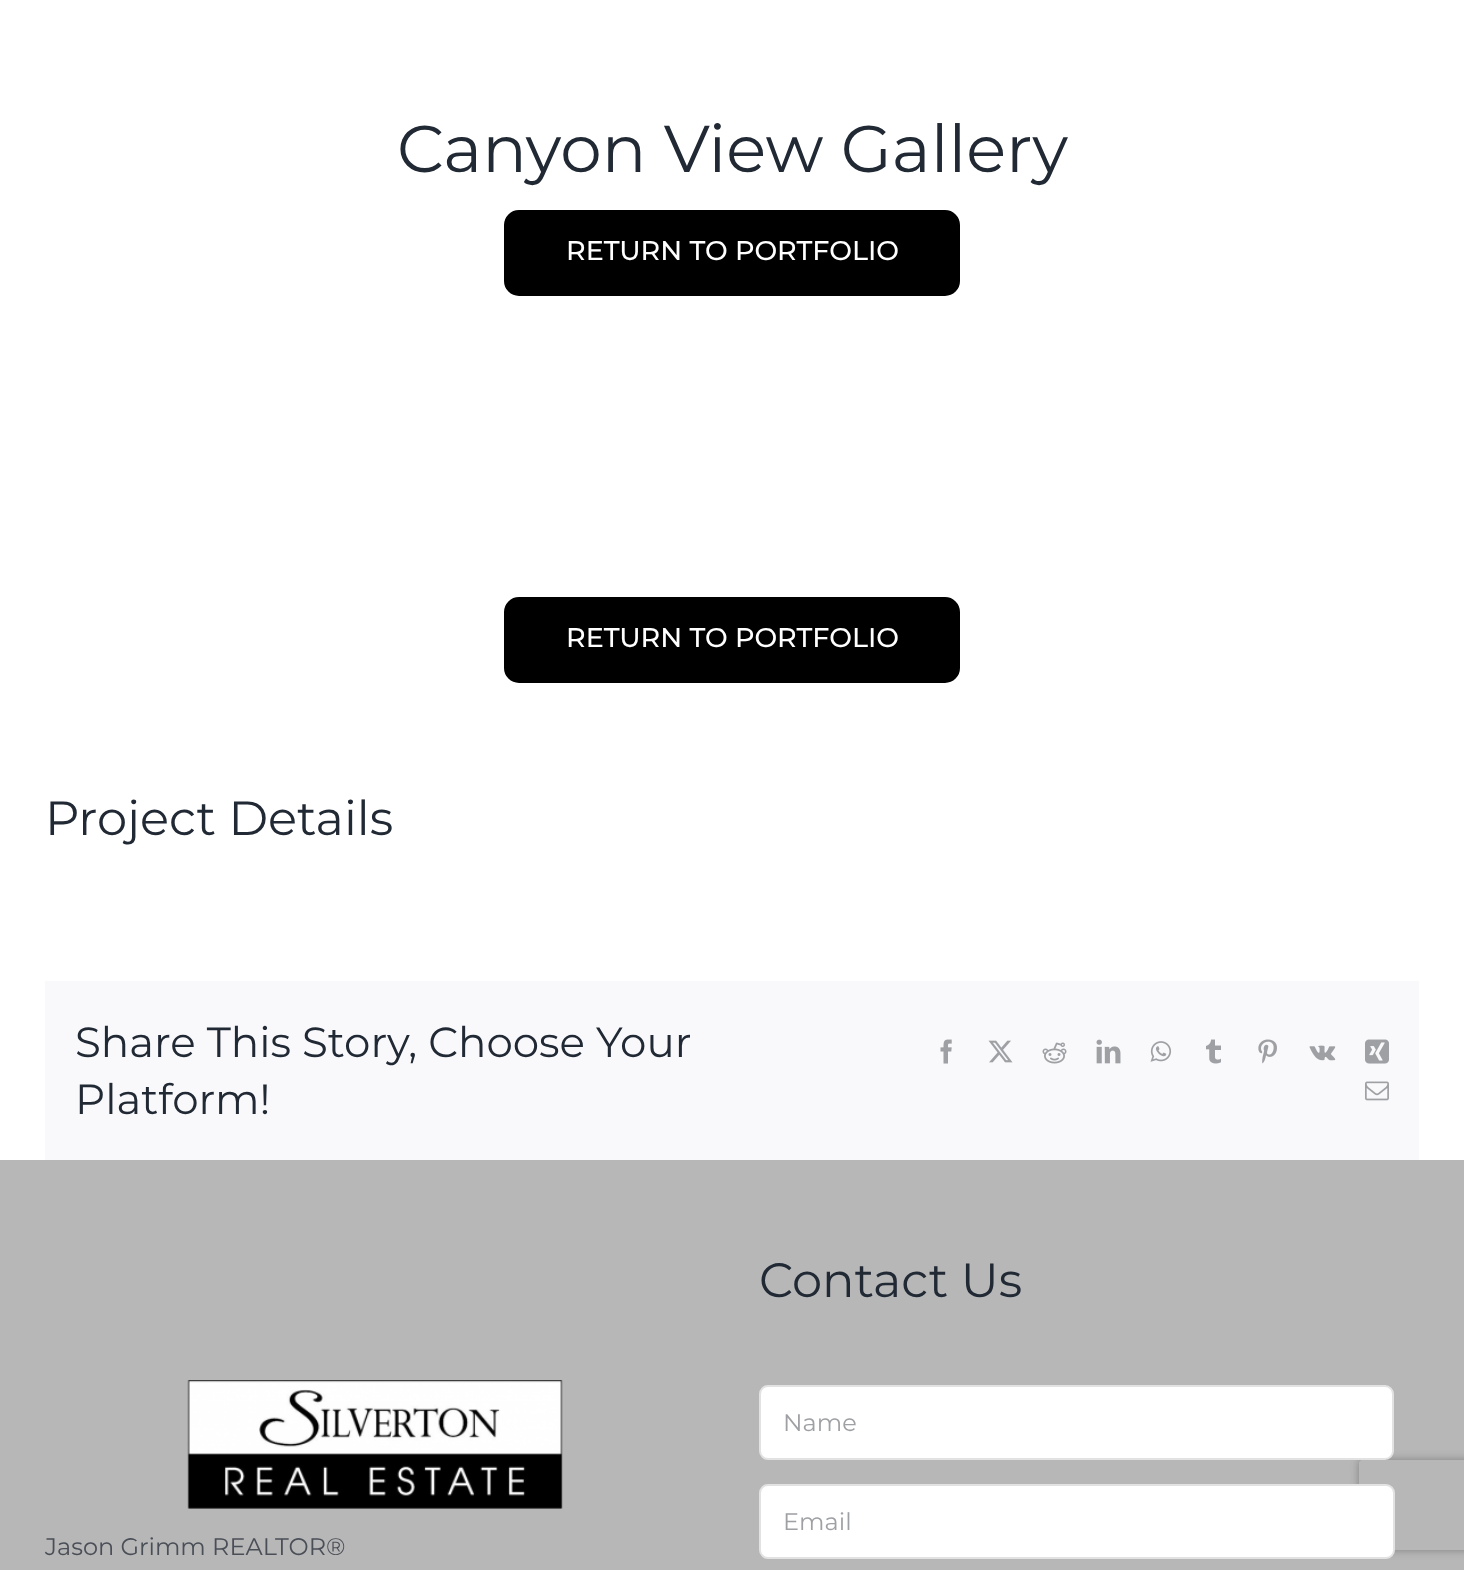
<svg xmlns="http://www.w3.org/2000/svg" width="1464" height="1570">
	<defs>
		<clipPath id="clip1"><path d="M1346 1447H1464V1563H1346ZM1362 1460H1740C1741.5 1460 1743 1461.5 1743 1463V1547C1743 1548.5 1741.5 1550 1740 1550H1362C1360.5 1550 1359 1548.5 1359 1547V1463C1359 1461.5 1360.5 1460 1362 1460Z" clip-rule="evenodd" /></clipPath>
	</defs>
	<rect width="100%" height="100%" fill="#FFFFFF" />
	<text x="397" y="172" font-family="Montserrat" font-size="66" fill="#212934">Canyon View Gallery</text>
	<rect x="505" y="211" width="454" height="84" rx="14" fill="#000000" stroke="#000000" stroke-width="2" />
	<text x="566" y="260" font-family="Montserrat" font-size="27" font-weight="500" fill="#FFFFFF">RETURN TO PORTFOLIO</text>
	<rect x="505" y="598" width="454" height="84" rx="14" fill="#000000" stroke="#000000" stroke-width="2" />
	<text x="566" y="647" font-family="Montserrat" font-size="27" font-weight="500" fill="#FFFFFF">RETURN TO PORTFOLIO</text>
	<text x="45" y="835" font-family="Montserrat" font-size="48" fill="#212934">Project Details</text>
	<rect x="45" y="981" width="1374" height="179" fill="#F9F9FB" />
	<g font-family="Montserrat" font-size="42" fill="#212934">
		<text x="75" y="1057">Share This Story, Choose Your</text>
		<text x="75" y="1114">Platform!</text>
	</g>
	<image x="940" y="1039" width="12" height="25" href="assets/img1.png" />
	<image x="988" y="1040" width="25" height="23" href="assets/img2.png" />
	<image x="1042" y="1042" width="25" height="22" href="assets/img3.png" />
	<image x="1096" y="1039" width="25" height="25" href="assets/img4.png" />
	<image x="1150" y="1041" width="22" height="21" href="assets/img5.png" />
	<image x="1206" y="1039" width="15" height="25" href="assets/img6.png" />
	<image x="1258" y="1039" width="19" height="25" href="assets/img7.png" />
	<image x="1309" y="1045" width="27" height="16" href="assets/img8.png" />
	<image x="1365" y="1039" width="24" height="25" href="assets/img9.png" />
	<image x="1365" y="1081" width="24" height="20" href="assets/img10.png" />
	<rect x="0" y="1160" width="1464" height="410" fill="#B7B7B7" />
	<text x="759" y="1297" font-family="Montserrat" font-size="48" fill="#212934">Contact Us</text>
	<g clip-path="url(#clip1)">
		<rect x="1359" y="1460" width="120" height="90" rx="3" fill="#808080" filter="blur(4px)" />
	</g>
	<rect x="760" y="1386" width="633" height="73" rx="8" fill="#FFFFFF" stroke="#E2E2E2" stroke-width="2" />
	<text x="783" y="1431" font-family="Montserrat" font-size="24" fill="#9EA0A4">Name</text>
	<rect x="760" y="1485" width="634" height="73" rx="8" fill="#FFFFFF" stroke="#E2E2E2" stroke-width="2" />
	<text x="783" y="1530" font-family="Montserrat" font-size="24" fill="#9EA0A4">Email</text>
	<image x="187" y="1380" width="376" height="129" href="assets/img11.png" />
	<text x="45" y="1555" font-family="Montserrat" font-size="24" fill="#4A4E57">Jason Grimm REALTOR®</text>
</svg>
